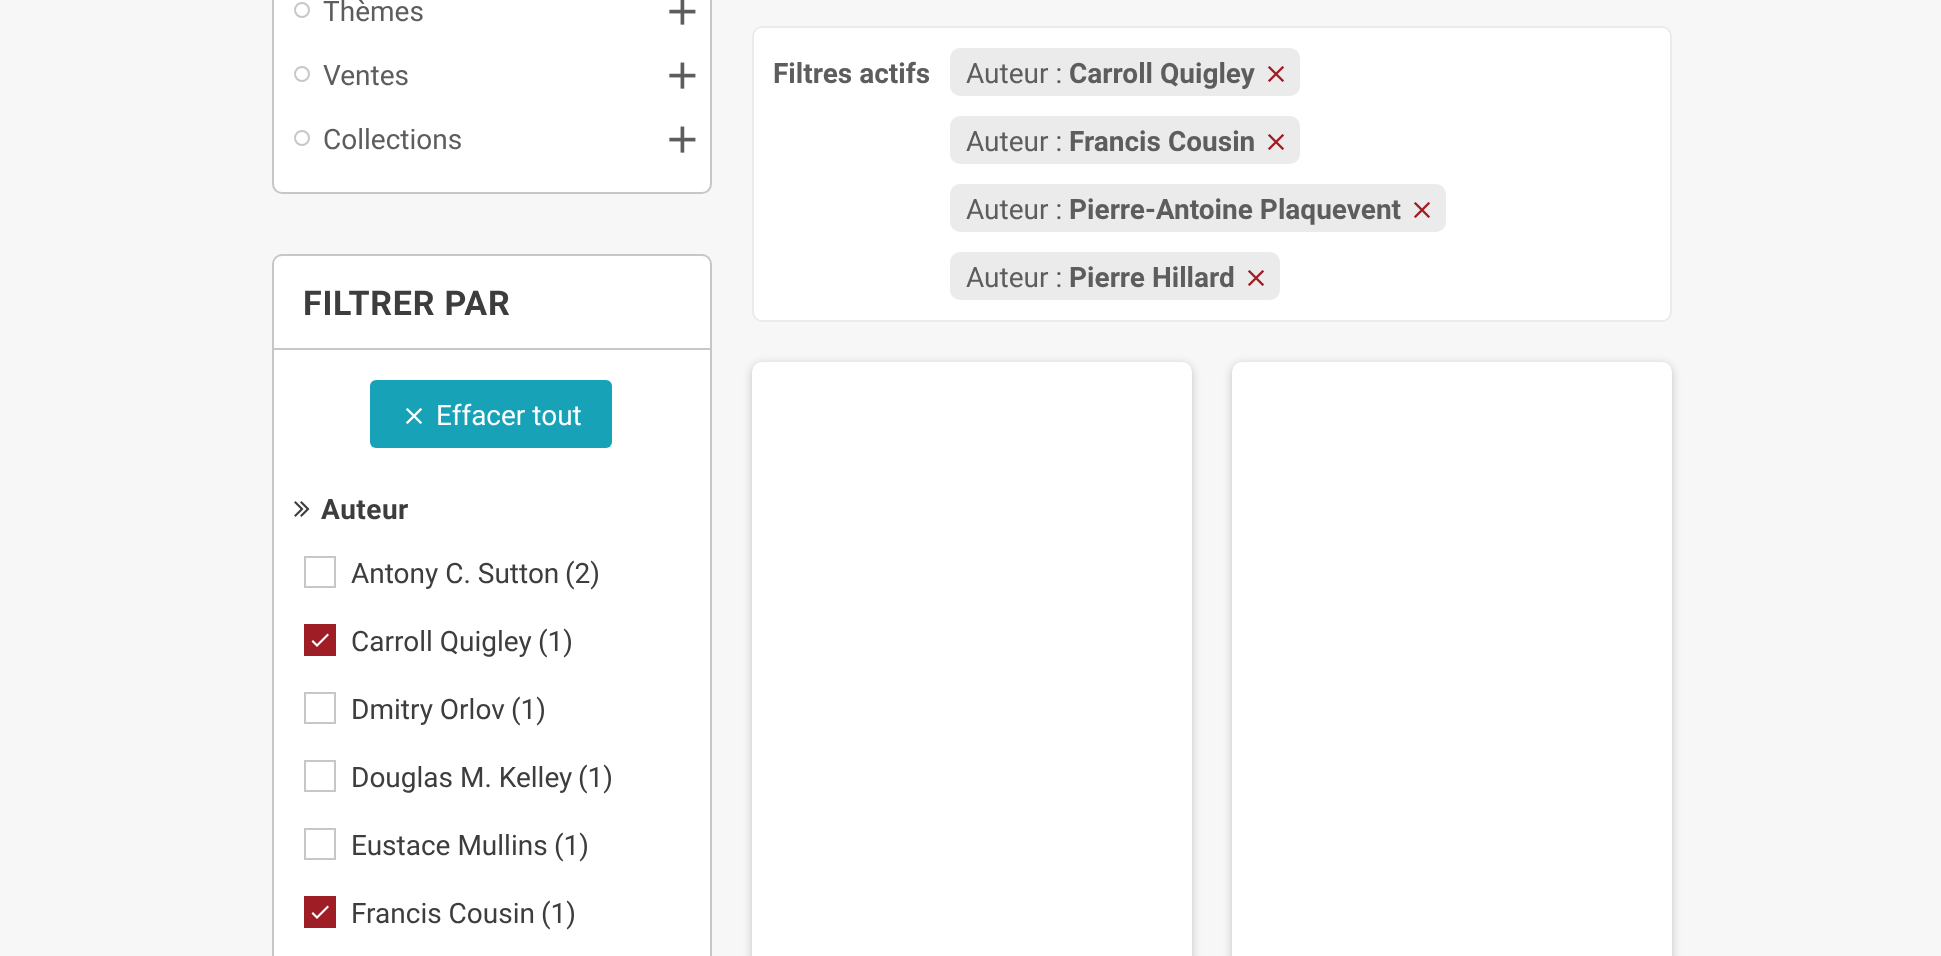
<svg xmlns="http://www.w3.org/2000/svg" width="1941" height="956">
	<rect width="100%" height="100%" fill="#F7F7F7" />
	<rect x="273" y="-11" width="438" height="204" rx="9" fill="#FFFFFF" stroke="#C7C7C7" stroke-width="2" />
	<circle cx="302" cy="10" r="7" fill="none" stroke="#C7C7C7" stroke-width="2" />
	<text x="323" y="21" font-family="Roboto" font-size="28" fill="#5D5D5D">Thèmes</text>
	<image x="669" y="0" width="27" height="25" href="assets/img1.png" />
	<circle cx="302" cy="74" r="7" fill="none" stroke="#C7C7C7" stroke-width="2" />
	<text x="323" y="85" font-family="Roboto" font-size="28" fill="#5D5D5D">Ventes</text>
	<image x="669" y="62" width="27" height="27" href="assets/img2.png" />
	<circle cx="302" cy="138" r="7" fill="none" stroke="#C7C7C7" stroke-width="2" />
	<text x="323" y="149" font-family="Roboto" font-size="28" fill="#5D5D5D">Collections</text>
	<image x="669" y="126" width="27" height="27" href="assets/img2.png" />
	<rect x="273" y="255" width="438" height="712" rx="9" fill="#FFFFFF" stroke="#C7C7C7" stroke-width="2" />
	<rect x="274" y="348" width="436" height="2" fill="#C7C7C7" />
	<text x="303" y="315" font-family="Roboto" font-size="34" font-weight="700" letter-spacing="0.75" fill="#3D3D3D">FILTRER PAR</text>
	<rect x="370" y="380" width="242" height="68" rx="6" fill="#17A2B8" />
	<image x="405" y="408" width="18" height="16" href="assets/img3.png" />
	<text x="436" y="425" font-family="Roboto" font-size="28" fill="#FFFFFF">Effacer tout</text>
	<image x="294" y="501" width="16" height="16" href="assets/img4.png" />
	<text x="321" y="519" font-family="Roboto" font-size="28" font-weight="700" letter-spacing="0.5" fill="#3D3D3D">Auteur</text>
	<rect x="305" y="557" width="30" height="30" fill="none" stroke="#C7C7C7" stroke-width="2" />
	<g font-family="Roboto" font-size="28" fill="#3D3D3D">
		<text x="351" y="583">Antony C. Sutton</text>
		<text x="565" y="583">(2)</text>
	</g>
	<rect x="304" y="624" width="32" height="32" fill="#9F1E25" />
	<path d="M317 644L327.5 633.5L329 635L317 647L311.5 641.5L313 640Z" fill="#FFFFFF" />
	<g font-family="Roboto" font-size="28" fill="#3D3D3D">
		<text x="351" y="651">Carroll Quigley</text>
		<text x="538" y="651">(1)</text>
	</g>
	<rect x="305" y="693" width="30" height="30" fill="none" stroke="#C7C7C7" stroke-width="2" />
	<g font-family="Roboto" font-size="28" fill="#3D3D3D">
		<text x="351" y="719">Dmitry Orlov</text>
		<text x="511" y="719">(1)</text>
	</g>
	<rect x="305" y="761" width="30" height="30" fill="none" stroke="#C7C7C7" stroke-width="2" />
	<g font-family="Roboto" font-size="28" fill="#3D3D3D">
		<text x="351" y="787">Douglas M. Kelley</text>
		<text x="578" y="787">(1)</text>
	</g>
	<rect x="305" y="829" width="30" height="30" fill="none" stroke="#C7C7C7" stroke-width="2" />
	<g font-family="Roboto" font-size="28" fill="#3D3D3D">
		<text x="351" y="855">Eustace Mullins</text>
		<text x="554" y="855">(1)</text>
	</g>
	<rect x="304" y="896" width="32" height="32" fill="#9F1E25" />
	<path d="M317 916L327.5 905.5L329 907L317 919L311.5 913.5L313 912Z" fill="#FFFFFF" />
	<g font-family="Roboto" font-size="28" fill="#3D3D3D">
		<text x="351" y="923">Francis Cousin</text>
		<text x="541" y="923">(1)</text>
	</g>
	<rect x="753" y="27" width="918" height="294" rx="9" fill="#FFFFFF" stroke="#EBEBEB" stroke-width="2" />
	<text x="773" y="83" font-family="'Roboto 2'" font-size="28" font-weight="700" fill="#5D5D5D">Filtres actifs</text>
	<rect x="950" y="48" width="350" height="48" rx="10" fill="#EBEBEB" />
	<text x="966" y="83" font-family="Roboto" font-size="28" fill="#5D5D5D">Auteur :</text>
	<text x="1069" y="83" font-family="'Roboto 2'" font-size="28" font-weight="700" fill="#5D5D5D">Carroll Quigley</text>
	<image x="1267" y="66" width="18" height="16" href="assets/img5.png" />
	<rect x="950" y="116" width="350" height="48" rx="10" fill="#EBEBEB" />
	<text x="966" y="151" font-family="Roboto" font-size="28" fill="#5D5D5D">Auteur :</text>
	<text x="1069" y="151" font-family="'Roboto 2'" font-size="28" font-weight="700" fill="#5D5D5D">Francis Cousin</text>
	<image x="1267" y="134" width="18" height="16" href="assets/img5.png" />
	<rect x="950" y="184" width="496" height="48" rx="10" fill="#EBEBEB" />
	<text x="966" y="219" font-family="Roboto" font-size="28" fill="#5D5D5D">Auteur :</text>
	<text x="1069" y="219" font-family="'Roboto 2'" font-size="28" font-weight="700" fill="#5D5D5D">Pierre-Antoine Plaquevent</text>
	<image x="1413" y="202" width="18" height="16" href="assets/img5.png" />
	<rect x="950" y="252" width="330" height="48" rx="10" fill="#EBEBEB" />
	<text x="966" y="287" font-family="Roboto" font-size="28" fill="#5D5D5D">Auteur :</text>
	<text x="1069" y="287" font-family="'Roboto 2'" font-size="28" font-weight="700" fill="#5D5D5D">Pierre Hillard</text>
	<image x="1247" y="270" width="18" height="16" href="assets/img5.png" />
	<rect x="752" y="364" width="440" height="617" rx="10" fill="#000000" fill-opacity="0.2" filter="blur(5px)" />
	<rect x="752" y="362" width="440" height="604" rx="10" fill="#FFFFFF" />
	<rect x="1232" y="364" width="440" height="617" rx="10" fill="#000000" fill-opacity="0.2" filter="blur(5px)" />
	<rect x="1232" y="362" width="440" height="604" rx="10" fill="#FFFFFF" />
</svg>
